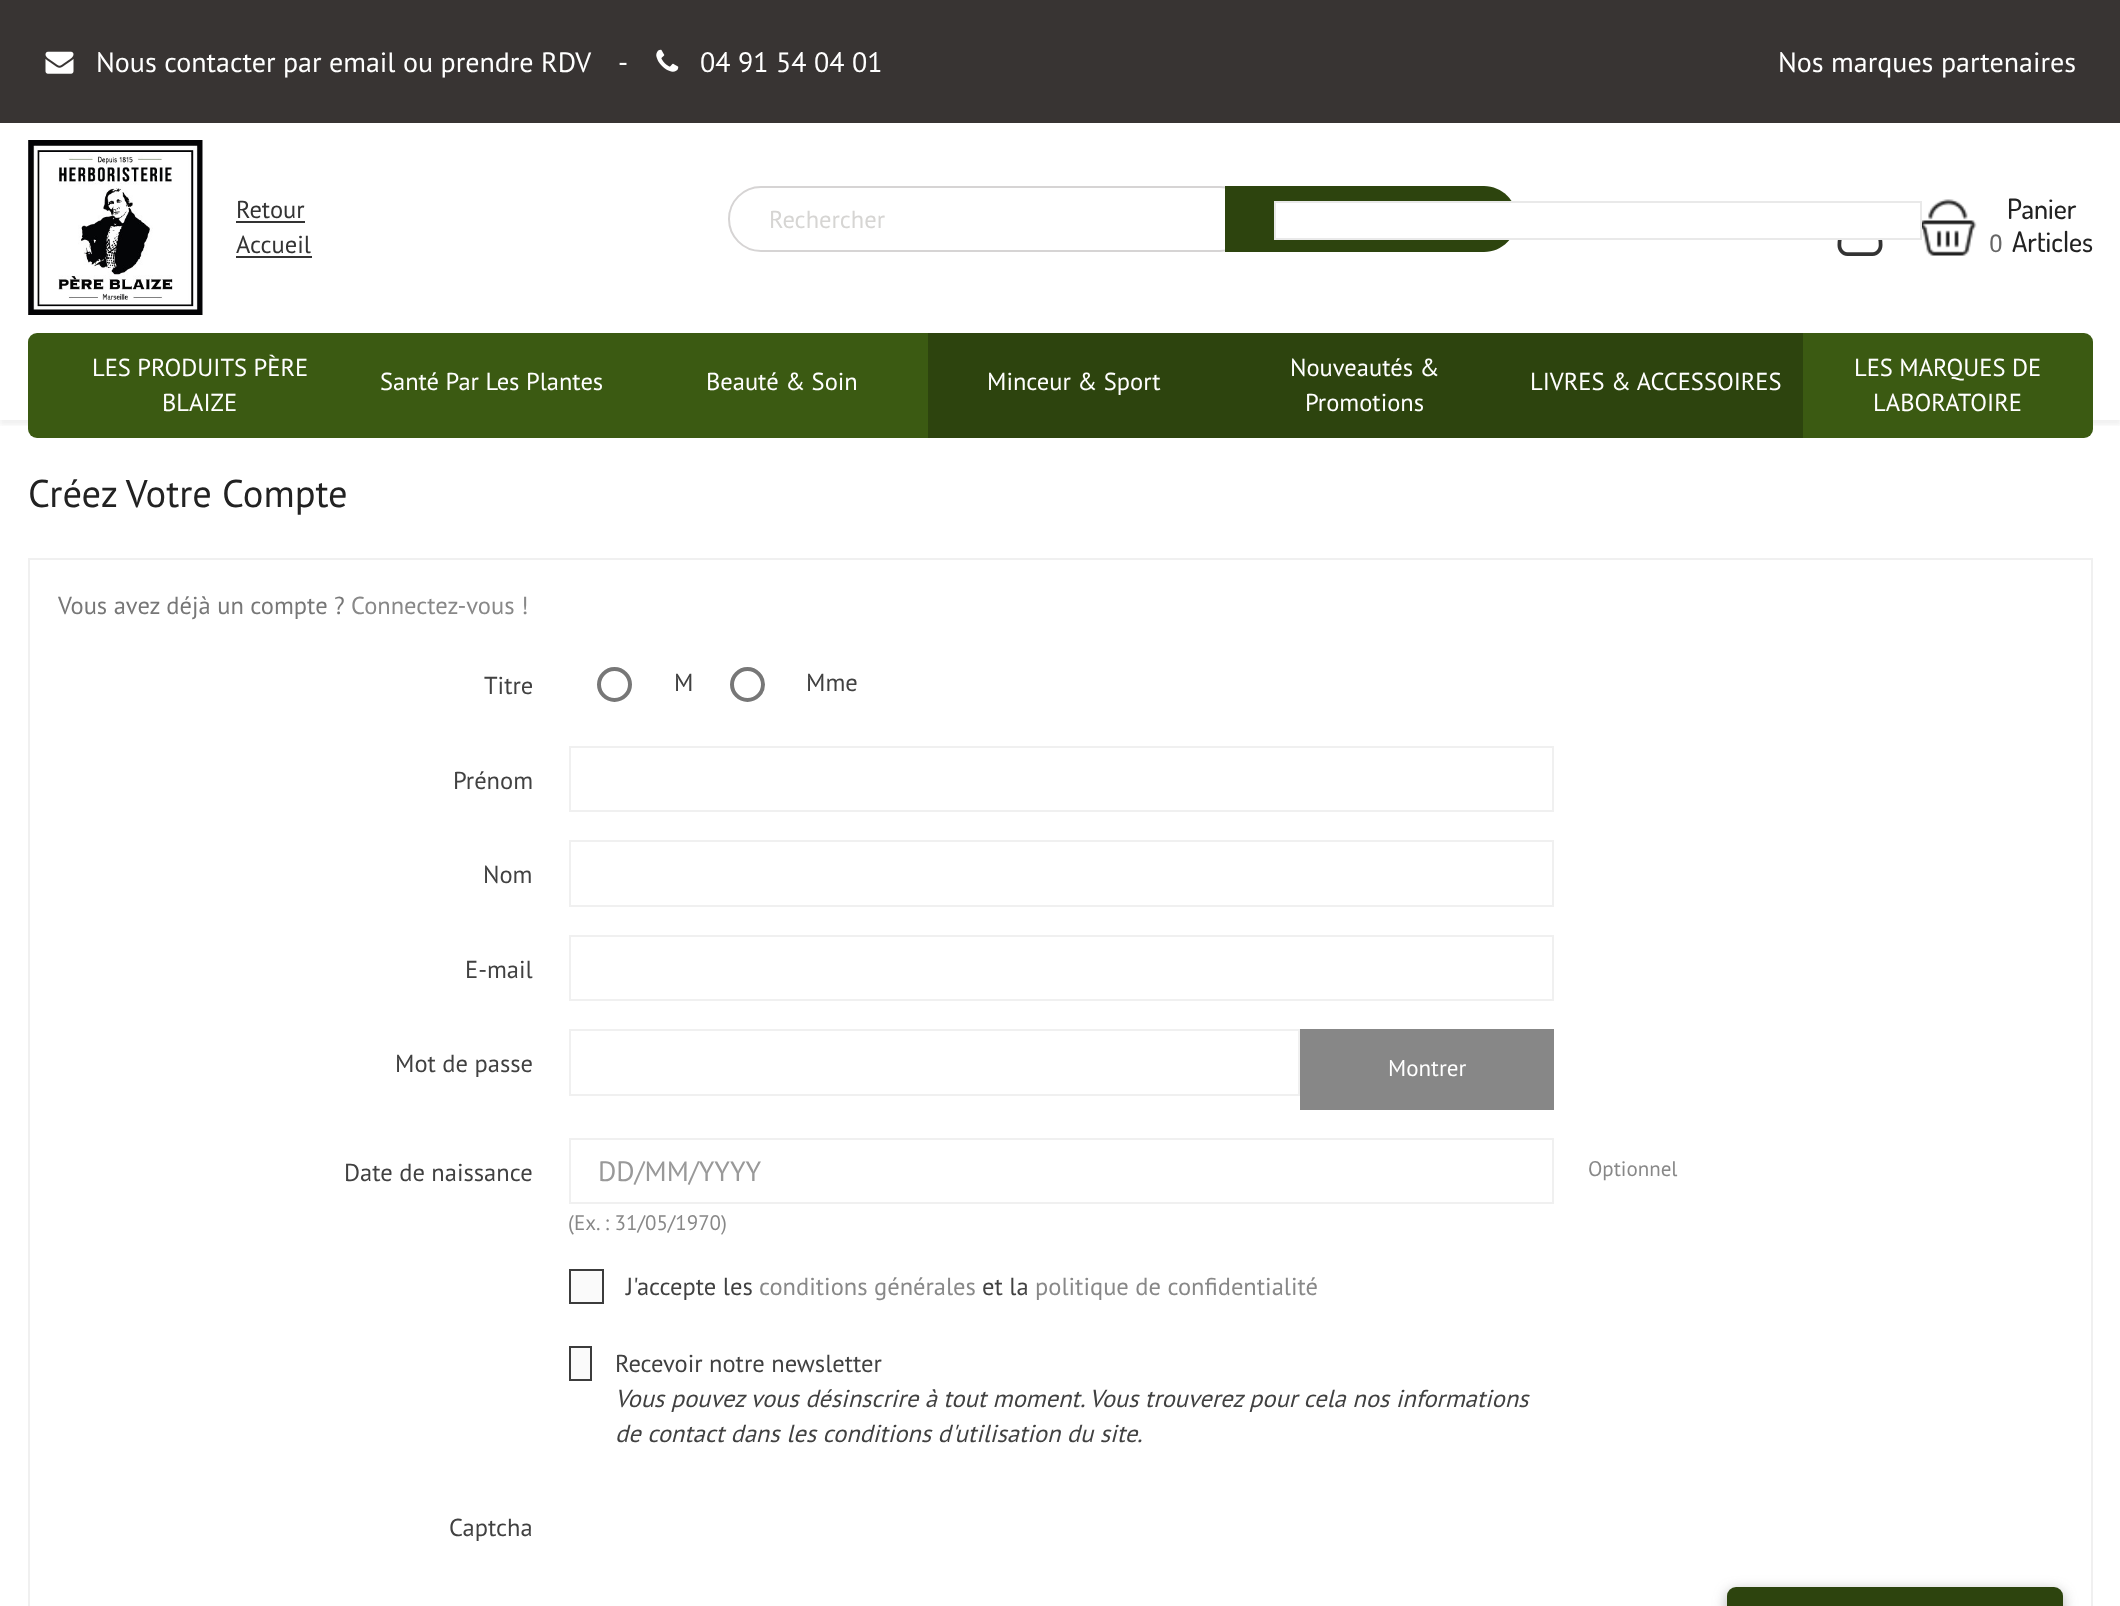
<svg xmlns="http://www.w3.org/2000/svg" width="2120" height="1606">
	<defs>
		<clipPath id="clip1"><rect x="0" y="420" width="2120" height="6" /></clipPath>
	</defs>
	<rect width="100%" height="100%" fill="#FFFFFF" />
	<g clip-path="url(#clip1)">
		<rect x="0" y="75" width="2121" height="350" fill="#323232" fill-opacity="0.07" filter="blur(2px)" />
	</g>
	<rect x="0" y="0" width="2120" height="123" fill="#383433" />
	<image x="45" y="51" width="29" height="23" href="assets/img1.png" />
	<g font-family="PT Sans" font-size="28" fill="#FFFFFF">
		<text x="96" y="72">Nous contacter par email ou prendre RDV</text>
		<text x="618" y="72">-</text>
	</g>
	<image x="656" y="49" width="23" height="23" href="assets/img2.png" />
	<g font-family="PT Sans" font-size="28" fill="#FFFFFF">
		<text x="700" y="72">04 91 54 04 01</text>
		<text x="1778" y="72">Nos marques partenaires</text>
	</g>
	<rect x="729" y="187" width="523" height="64" rx="32" fill="none" stroke="#D6D4D4" stroke-width="2" />
	<text x="769" y="228" font-family="PT Sans" font-size="24.5" fill="#D6D5D3">Rechercher</text>
	<path d="M1225 186H1484C1502 186 1517 201 1517 219C1517 237 1502 252 1484 252H1225Z" fill="#2D440E" />
	<image x="1922" y="199" width="55" height="57" href="assets/img3.png" />
	<text x="2007" y="219" font-family="Dosis" font-size="28" font-weight="500" fill="#222222">Panier</text>
	<text x="1989" y="252" font-family="Roboto" font-size="24.5" fill="#666666">0</text>
	<text x="2012" y="252" font-family="Dosis" font-size="28" font-weight="500" fill="#222222">Articles</text>
	<image x="1837" y="240" width="46" height="16" href="assets/img4.png" />
	<rect x="28" y="333" width="2065" height="105" rx="9" fill="#3B5A12" />
	<g font-family="PT Sans" font-size="24.5" fill="#FFFFFF">
		<text x="92" y="376">LES PRODUITS PÈRE</text>
		<text x="162" y="411">BLAIZE</text>
		<text x="380" y="390">Santé Par Les Plantes</text>
		<text x="706" y="390">Beauté &amp; Soin</text>
	</g>
	<rect x="928" y="333" width="875" height="105" fill="#2D440E" />
	<g font-family="PT Sans" font-size="24.5" fill="#FFFFFF">
		<text x="987" y="390">Minceur &amp; Sport</text>
		<text x="1290" y="376">Nouveautés &amp;</text>
		<text x="1305" y="411">Promotions</text>
		<text x="1530" y="390">LIVRES &amp; ACCESSOIRES</text>
		<text x="1854" y="376">LES MARQUES DE</text>
		<text x="1873" y="411">LABORATOIRE</text>
	</g>
	<image x="28" y="140" width="175" height="175" href="assets/img5.png" />
	<text x="236" y="218" font-family="PT Sans" font-size="24.5" fill="#333333">Retour</text>
	<rect x="236" y="221" width="69" height="2" fill="#333333" />
	<text x="236" y="253" font-family="PT Sans" font-size="24.5" fill="#333333">Accueil</text>
	<rect x="236" y="256" width="76" height="2" fill="#333333" />
	<text x="28" y="507" font-family="PT Sans" font-size="38.5" fill="#222222">Créez Votre Compte</text>
	<rect x="29" y="559" width="2063" height="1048" fill="none" stroke="#F0F0F0" stroke-width="2" />
	<text x="58" y="614" font-family="PT Sans" font-size="24.5" fill="#777777">Vous avez déjà un compte ?</text>
	<text x="351" y="614" font-family="PT Sans" font-size="24.5" fill="#888888">Connectez-vous !</text>
	<text x="484" y="694" font-family="PT Sans" font-size="24.5" fill="#414141">Titre</text>
	<circle cx="614.5" cy="684.5" r="15.5" fill="none" stroke="#777777" stroke-width="4" />
	<text x="674" y="691" font-family="PT Sans" font-size="24.5" fill="#414141">M</text>
	<circle cx="747.5" cy="684.5" r="15.5" fill="none" stroke="#777777" stroke-width="4" />
	<g font-family="PT Sans" font-size="24.5" fill="#414141">
		<text x="806" y="691">Mme</text>
		<text x="453" y="789">Prénom</text>
	</g>
	<rect x="570" y="747" width="983" height="64" fill="none" stroke="#F0F0F0" stroke-width="2" />
	<text x="483" y="883" font-family="PT Sans" font-size="24.5" fill="#414141">Nom</text>
	<rect x="570" y="841" width="983" height="65" fill="none" stroke="#F0F0F0" stroke-width="2" />
	<text x="465" y="978" font-family="PT Sans" font-size="24.5" fill="#414141">E-mail</text>
	<rect x="570" y="936" width="983" height="64" fill="none" stroke="#F0F0F0" stroke-width="2" />
	<text x="395" y="1072" font-family="PT Sans" font-size="24.5" fill="#414141">Mot de passe</text>
	<rect x="570" y="1030" width="729" height="65" fill="none" stroke="#F0F0F0" stroke-width="2" />
	<rect x="1300" y="1029" width="254" height="81" fill="#878787" />
	<text x="1388" y="1076" font-family="PT Sans" font-size="23" fill="#FFFFFF">Montrer</text>
	<text x="344" y="1181" font-family="PT Sans" font-size="24.5" fill="#414141">Date de naissance</text>
	<rect x="570" y="1139" width="983" height="64" fill="none" stroke="#F0F0F0" stroke-width="2" />
	<text x="598" y="1181" font-family="PT Sans" font-size="28" fill="#999999">DD/MM/YYYY</text>
	<g font-family="PT Sans" font-size="21" fill="#888888">
		<text x="568" y="1230">(Ex. : 31/05/1970)</text>
		<text x="1588" y="1176">Optionnel</text>
	</g>
	<rect x="570" y="1270" width="33" height="33" fill="#FAFAFA" stroke="#3C3C3C" stroke-width="2" />
	<text x="626" y="1295" font-family="PT Sans" font-size="24.5" fill="#414141">J'accepte les</text>
	<text x="759" y="1295" font-family="PT Sans" font-size="24.5" fill="#888888">conditions générales</text>
	<text x="982" y="1295" font-family="PT Sans" font-size="24.5" fill="#414141">et la</text>
	<text x="1035" y="1295" font-family="PT Sans" font-size="24.5" fill="#888888">politique de confidentialité</text>
	<rect x="570" y="1347" width="21" height="33" fill="#FAFAFA" stroke="#3C3C3C" stroke-width="2" />
	<text x="615" y="1372" font-family="PT Sans" font-size="24.5" fill="#414141">Recevoir notre newsletter</text>
	<g font-family="PT Sans" font-size="24.5" font-style="italic" fill="#414141">
		<text x="615" y="1407">Vous pouvez vous désinscrire à tout moment. Vous trouverez pour cela nos informations</text>
		<text x="615" y="1442">de contact dans les conditions d'utilisation du site.</text>
	</g>
	<text x="449" y="1536" font-family="PT Sans" font-size="24.5" fill="#414141">Captcha</text>
	<rect x="1727" y="1591" width="336" height="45" rx="9" fill="#636363" fill-opacity="0.5" filter="blur(7px)" />
	<rect x="1727" y="1587" width="336" height="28" rx="9" fill="#2D440E" />
	<rect x="1276" y="203" width="241" height="35" fill="#FFFFFF" />
	<rect x="1275" y="202" width="646" height="37" fill="none" stroke="#E9E9E9" stroke-width="2" />
</svg>
